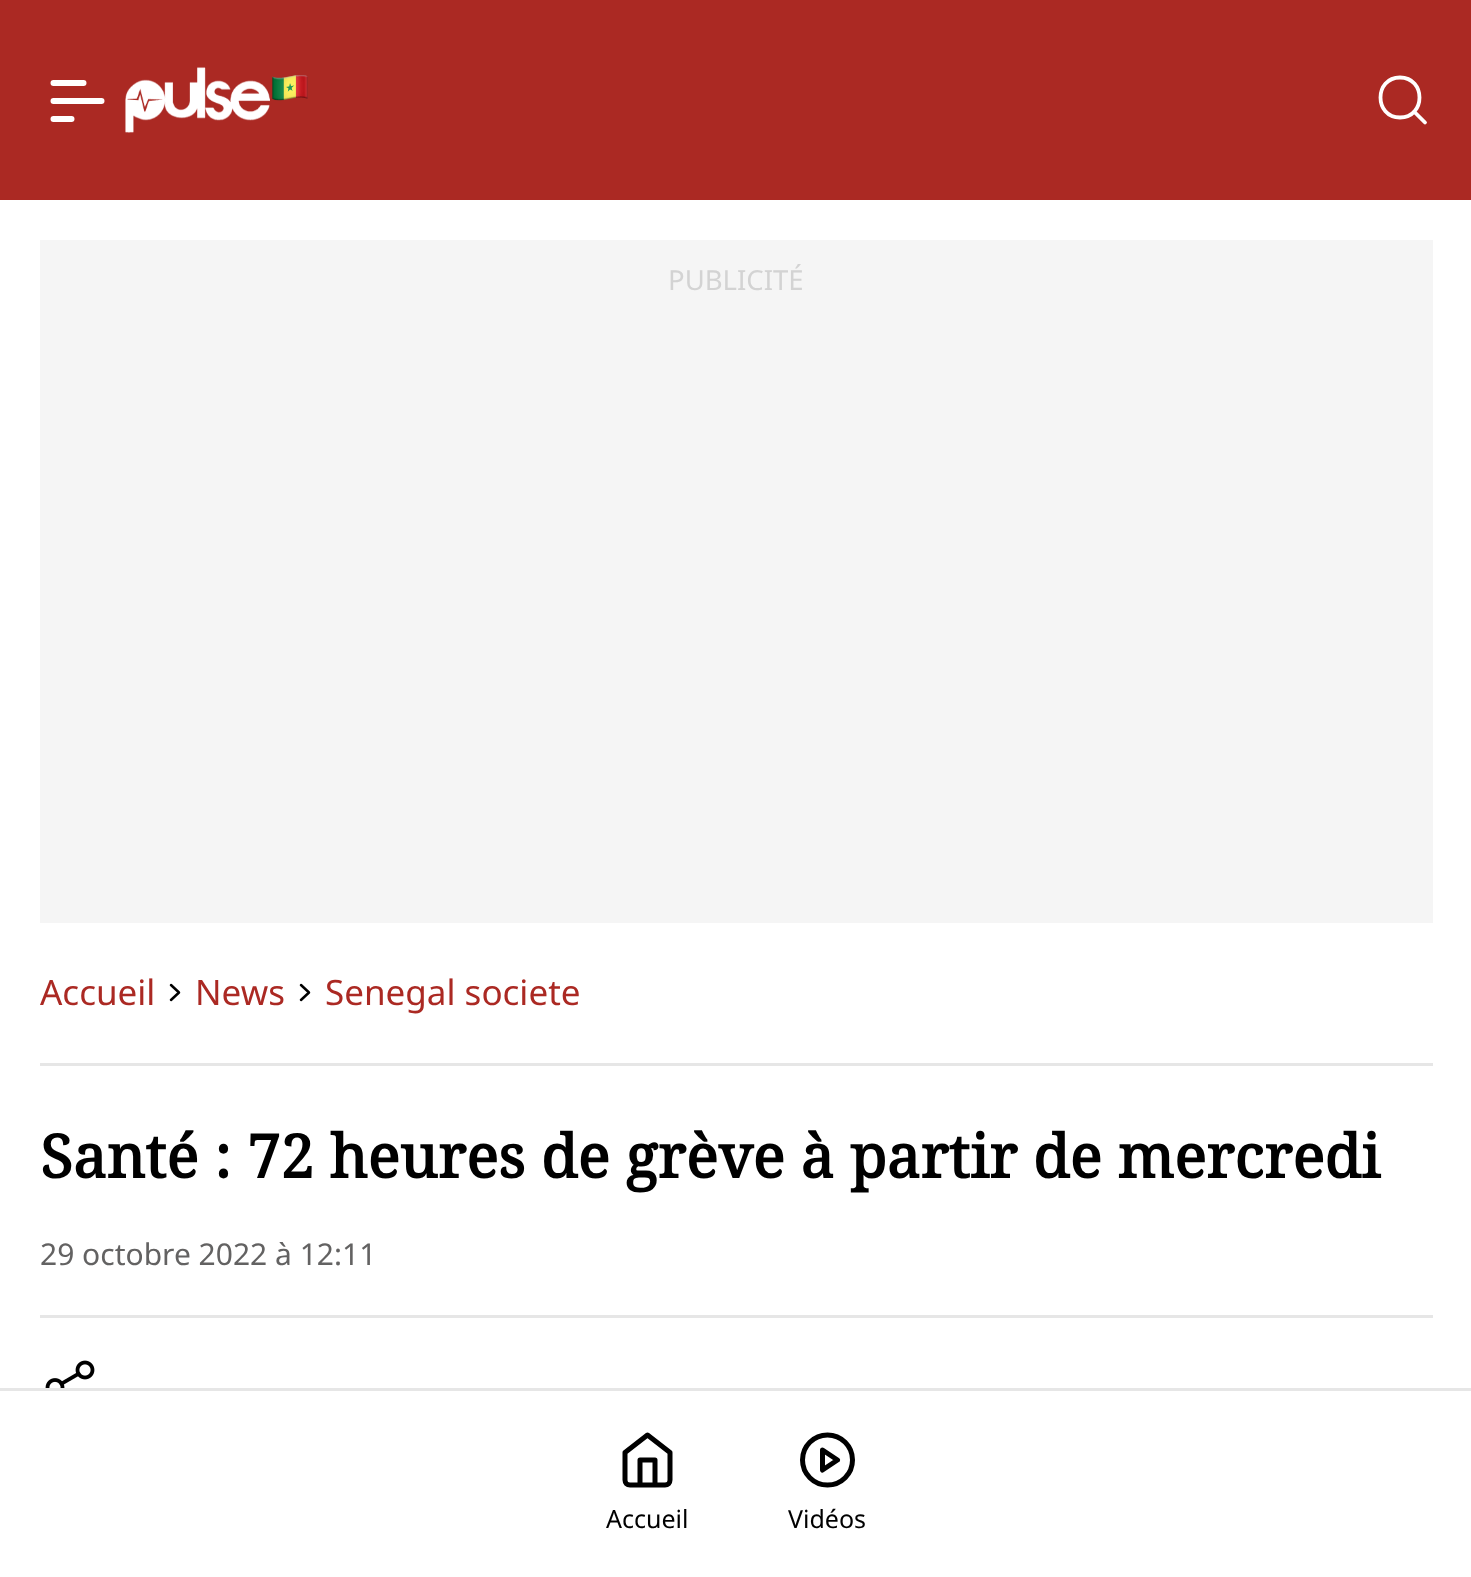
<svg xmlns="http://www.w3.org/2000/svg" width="1471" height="1577">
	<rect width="100%" height="100%" fill="#FFFFFF" />
	<rect x="0" y="0" width="1471" height="200" fill="#AB2923" />
	<path d="M53.5 83H83.5M53.5 101H101.5M53.5 119H71.5" fill="none" stroke="#FFFFFF" stroke-width="6" stroke-linecap="round" stroke-linejoin="round" />
	<image x="125" y="67" width="145" height="66" href="assets/img1.png" />
	<image x="272" y="75" width="36" height="26" href="assets/img2.png" />
	<path d="M1400 117.5C1426 117.5 1426 77.5 1400 77.5C1374 77.5 1374 117.5 1400 117.5ZM1425 122.5L1414 111.5" fill="none" stroke="#FFFFFF" stroke-width="3.8" stroke-linecap="round" stroke-linejoin="round" />
	<rect x="40" y="240" width="1393" height="683" fill="#F5F5F5" />
	<text x="668" y="290" font-family="Noto Sans" font-size="27.5" fill="#D3D3D3">PUBLICITÉ</text>
	<rect x="40" y="1063" width="1393" height="3" fill="#E6E6E6" />
	<text x="40" y="1005" font-family="Noto Sans" font-size="35" fill="#AB2923">Accueil</text>
	<path d="M171 1000L179 992.5L171 985" fill="none" stroke="#000000" stroke-width="2.5" stroke-linecap="round" stroke-linejoin="round" />
	<text x="195" y="1005" font-family="Noto Sans" font-size="35" fill="#AB2923">News</text>
	<path d="M301 1000L309 992.5L301 985" fill="none" stroke="#000000" stroke-width="2.5" stroke-linecap="round" stroke-linejoin="round" />
	<text x="325" y="1005" font-family="Noto Sans" font-size="35" fill="#AB2923">Senegal societe</text>
	<text x="40" y="1178" font-family="Noto Serif" font-size="60" font-weight="700" fill="#000000">Santé : 72 heures de grève à partir de mercredi</text>
	<rect x="40" y="1315" width="1393" height="3" fill="#E6E6E6" />
	<text x="40" y="1265" font-family="Noto Sans" font-size="30" fill="#636262">29 octobre 2022 à 12:11</text>
	<image x="45" y="1360" width="50" height="28" href="assets/img3.png" />
	<rect x="0" y="1388" width="1471" height="3" fill="#E6E6E6" />
	<path d="M625 1452.5L647.5 1435L670 1452.5V1480C670 1483 668 1485 665 1485H630C627 1485 625 1483 625 1480ZM640 1485V1460H655V1485" fill="none" stroke="#000000" stroke-width="5" stroke-linecap="round" stroke-linejoin="round" />
	<text x="606" y="1528" font-family="Noto Sans" font-size="25" fill="#000000">Accueil</text>
	<circle cx="827.5" cy="1460" r="25" fill="none" stroke="#000000" stroke-width="5" />
	<path d="M822.5 1450L837.5 1460L822.5 1470Z" fill="none" stroke="#000000" stroke-width="5" stroke-linecap="round" stroke-linejoin="round" />
	<text x="788" y="1528" font-family="Noto Sans" font-size="25" fill="#000000">Vidéos</text>
</svg>
